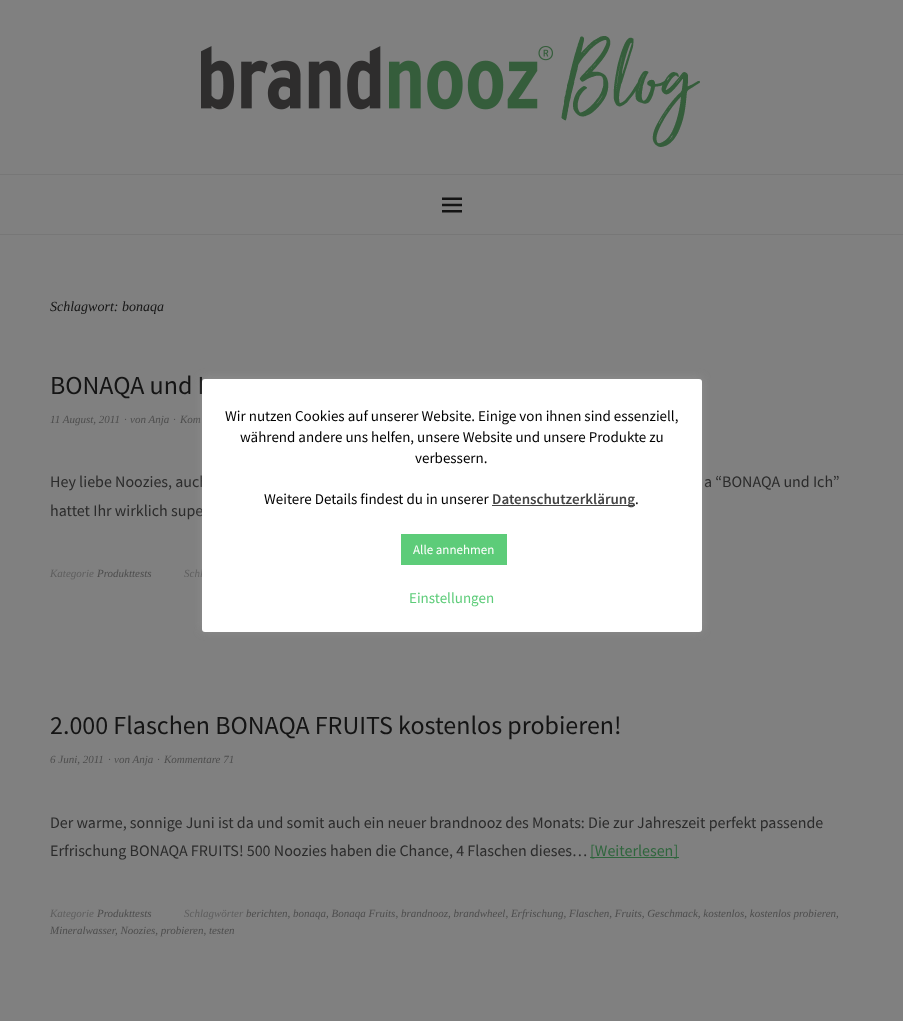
<svg xmlns="http://www.w3.org/2000/svg" width="903" height="1021">
	<rect width="100%" height="100%" fill="#808080" />
	<rect x="0" y="174" width="903" height="1" fill="#777777" />
	<image x="201" y="36" width="499" height="111" href="assets/img1.png" />
	<rect x="0" y="234" width="903" height="1" fill="#777777" />
	<image x="442" y="197" width="20" height="16" href="assets/img2.png" />
	<text x="50" y="311" font-family="Liberation Serif" font-size="14" font-style="italic" fill="#141414">Schlagwort: bonaqa</text>
	<text x="50" y="394" font-family="Source Sans Pro" font-size="26" fill="#141414">BONAQA und I</text>
	<g font-family="Liberation Serif" font-size="11" font-style="italic" fill="#4D4D4D">
		<text x="50" y="423">11 August, 2011</text>
		<text x="124" y="423">∙</text>
		<text x="130" y="423">von Anja</text>
		<text x="173" y="423">∙</text>
		<text x="180" y="423">Kom</text>
	</g>
	<g font-family="Source Sans Pro" font-size="16" fill="#2B2B2B">
		<text x="50" y="487">Hey liebe Noozies, auch</text>
		<text x="704" y="487">a “BONAQA und Ich”</text>
		<text x="50" y="516">hattet Ihr wirklich supe</text>
	</g>
	<text x="50" y="577" font-family="Liberation Serif" font-size="11" font-style="italic" fill="#5E5E5E">Kategorie</text>
	<text x="97" y="577" font-family="Liberation Serif" font-size="11" font-style="italic" fill="#4D4D4D">Produkttests</text>
	<text x="184" y="577" font-family="Liberation Serif" font-size="11" font-style="italic" fill="#5E5E5E">Schl</text>
	<text x="50" y="734" font-family="Source Sans Pro" font-size="26" fill="#141414">2.000 Flaschen BONAQA FRUITS kostenlos probieren!</text>
	<g font-family="Liberation Serif" font-size="11" font-style="italic" fill="#4D4D4D">
		<text x="50" y="763">6 Juni, 2011</text>
		<text x="108" y="763">∙</text>
		<text x="114" y="763">von Anja</text>
		<text x="157" y="763">∙</text>
		<text x="164" y="763">Kommentare 71</text>
	</g>
	<g font-family="Source Sans Pro" font-size="16" fill="#2B2B2B">
		<text x="50" y="828">Der warme, sonnige Juni ist da und somit auch ein neuer brandnooz des Monats: Die zur Jahreszeit perfekt passende</text>
		<text x="50" y="856">Erfrischung BONAQA FRUITS! 500 Noozies haben die Chance, 4 Flaschen dieses…</text>
	</g>
	<rect x="590" y="857" width="89" height="1" fill="#2F663D" />
	<text x="590" y="856" font-family="Source Sans Pro" font-size="16" fill="#2F663D">[Weiterlesen]</text>
	<text x="50" y="917" font-family="Liberation Serif" font-size="11" font-style="italic" fill="#5E5E5E">Kategorie</text>
	<text x="97" y="917" font-family="Liberation Serif" font-size="11" font-style="italic" fill="#4D4D4D">Produkttests</text>
	<text x="184" y="917" font-family="Liberation Serif" font-size="11" font-style="italic" fill="#5E5E5E">Schlagwörter</text>
	<g font-family="Liberation Serif" font-size="11" font-style="italic" fill="#4D4D4D">
		<text x="246" y="917">berichten, bonaqa, Bonaqa Fruits, brandnooz, brandwheel, Erfrischung, Flaschen, Fruits, Geschmack, kostenlos, kostenlos probieren,</text>
		<text x="50" y="934">Mineralwasser</text>
		<text x="115" y="934">, Noozies, probieren, testen</text>
	</g>
	<rect x="202" y="378" width="500" height="253" rx="3" fill="#ACABAB" fill-opacity="0.3" filter="blur(5px)" />
	<rect x="202" y="379" width="500" height="253" rx="3" fill="#FFFFFF" />
	<g font-family="Source Sans Pro" font-size="15" fill="#000000">
		<text x="225" y="421">Wir nutzen Cookies auf unserer Website. Einige von ihnen sind essenziell,</text>
		<text x="240" y="442">während andere uns helfen, unsere Website und unsere Produkte zu</text>
		<text x="415" y="463">verbessern.</text>
		<text x="264" y="504">Weitere Details findest du in unserer</text>
	</g>
	<rect x="492" y="505" width="143" height="1" fill="#444444" />
	<text x="492" y="504" font-family="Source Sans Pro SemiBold" font-size="15" font-weight="600" fill="#444444">Datenschutzerklärung</text>
	<text x="635" y="504" font-family="Source Sans Pro" font-size="15" fill="#000000">.</text>
	<rect x="401" y="534" width="106" height="31" fill="#5DCC79" />
	<text x="413" y="554" font-family="Source Sans Pro" font-size="13" fill="#FFFFFF">Alle annehmen</text>
	<text x="409" y="603" font-family="Source Sans Pro" font-size="15" fill="#5DCC79">Einstellungen</text>
</svg>
